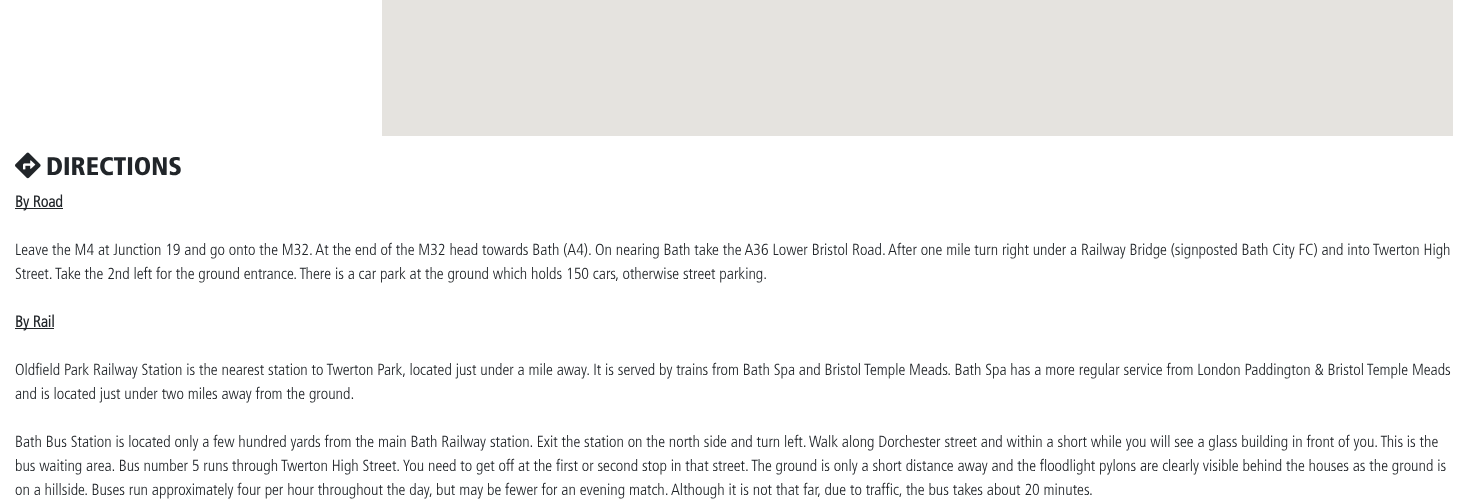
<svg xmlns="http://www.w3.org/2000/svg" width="1468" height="502">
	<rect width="100%" height="100%" fill="#FFFFFF" />
	<rect x="382" y="0" width="1071" height="136" fill="#E5E3DF" />
	<image x="15" y="152" width="26" height="27" href="assets/img1.png" />
	<text x="46" y="175" font-family="'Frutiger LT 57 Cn'" font-size="25.5" font-weight="900" fill="#212529">DIRECTIONS</text>
	<rect x="15" y="208" width="48" height="1" fill="#212529" />
	<text x="15" y="207" font-family="'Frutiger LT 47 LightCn'" font-size="16" font-weight="700" fill="#212529">By Road</text>
	<g font-family="'Frutiger LT 47 LightCn'" font-size="16" font-weight="300" fill="#212529">
		<text x="15" y="255">Leave the M4 at Junction 19 and go onto the M32. At the end of the M32 head towards Bath (A4). On nearing Bath take the A36 Lower Bristol Road. After one mile turn right under a Railway Bridge (signposted Bath City FC) and into Twerton High</text>
		<text x="15" y="279">Street. Take the 2nd left for the ground entrance. There is a car park at the ground which holds 150 cars, otherwise street parking.</text>
	</g>
	<rect x="15" y="328" width="39" height="1" fill="#212529" />
	<text x="15" y="327" font-family="'Frutiger LT 47 LightCn'" font-size="16" font-weight="700" fill="#212529">By Rail</text>
	<g font-family="'Frutiger LT 47 LightCn'" font-size="16" font-weight="300" fill="#212529">
		<text x="15" y="375">Oldfield Park Railway Station is the nearest station to Twerton Park, located just under a mile away. It is served by trains from Bath Spa and Bristol Temple Meads. Bath Spa has a more regular service from London Paddington &amp; Bristol Temple Meads</text>
		<text x="15" y="399">and is located just under two miles away from the ground.</text>
		<text x="15" y="447">Bath Bus Station is located only a few hundred yards from the main Bath Railway station. Exit the station on the north side and turn left. Walk along Dorchester street and within a short while you will see a glass building in front of you. This is the</text>
		<text x="15" y="471">bus waiting area. Bus number 5 runs through Twerton High Street. You need to get off at the first or second stop in that street. The ground is only a short distance away and the floodlight pylons are clearly visible behind the houses as the ground is</text>
		<text x="15" y="495">on a hillside. Buses run approximately four per hour throughout the day, but may be fewer for an evening match. Although it is not that far, due to traffic, the bus takes about 20 minutes.</text>
	</g>
</svg>
